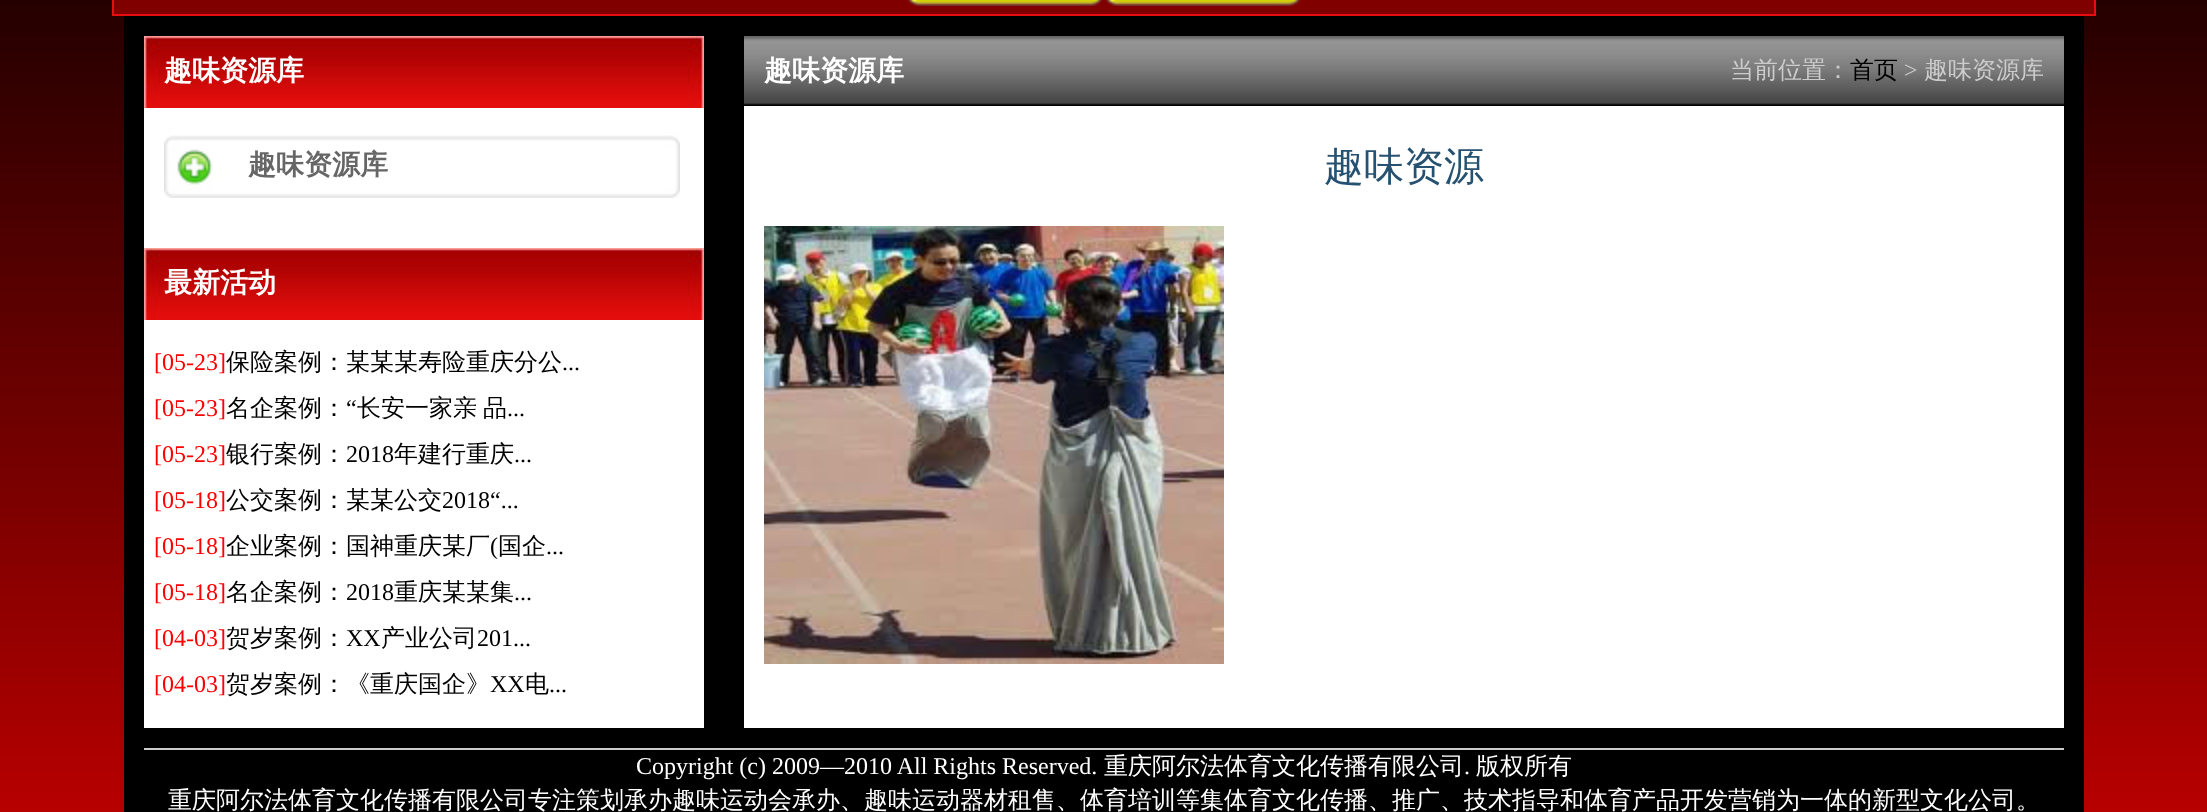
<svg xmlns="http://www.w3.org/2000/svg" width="2207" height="812">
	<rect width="100%" height="100%" fill="#FFFFFF" />
	<image x="0" y="0" width="2207" height="812" href="assets/img1.png" />
	<rect x="113" y="-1" width="1982" height="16" fill="#800000" stroke="#E60E0E" stroke-width="2" />
	<image x="907" y="0" width="196" height="6" href="assets/img2.png" />
	<image x="1105" y="0" width="196" height="6" href="assets/img2.png" />
	<rect x="124" y="16" width="1960" height="796" fill="#000000" />
	<rect x="144" y="108" width="560" height="620" fill="#FFFFFF" />
	<image x="144" y="36" width="560" height="72" href="assets/img3.png" />
	<text x="164" y="80" font-family="WenQuanYi Zen Hei" font-size="28" font-weight="700" fill="#FFFFFF">趣味资源库</text>
	<image x="164" y="135" width="516" height="63" href="assets/img4.png" />
	<text x="248" y="174" font-family="WenQuanYi Zen Hei" font-size="28" font-weight="700" fill="#666666">趣味资源库</text>
	<image x="144" y="248" width="560" height="72" href="assets/img3.png" />
	<text x="164" y="292" font-family="WenQuanYi Zen Hei" font-size="28" font-weight="700" fill="#FFFFFF">最新活动</text>
	<text x="154" y="370" font-family="Liberation Serif" font-size="24" fill="#FF0000">[05-23]</text>
	<text x="226" y="370" font-family="WenQuanYi Zen Hei" font-size="24" font-weight="500" fill="#000000">保险案例：某某某寿险重庆分公</text>
	<text x="562" y="370" font-family="Liberation Serif" font-size="24" fill="#000000">...</text>
	<text x="154" y="416" font-family="Liberation Serif" font-size="24" fill="#FF0000">[05-23]</text>
	<text x="226" y="416" font-family="WenQuanYi Zen Hei" font-size="24" font-weight="500" fill="#000000">名企案例：</text>
	<text x="346" y="416" font-family="Liberation Serif" font-size="24" fill="#000000">“</text>
	<g font-family="WenQuanYi Zen Hei" font-size="24" font-weight="500" fill="#000000">
		<text x="357" y="416">长安一家亲</text>
		<text x="483" y="416">品</text>
	</g>
	<text x="507" y="416" font-family="Liberation Serif" font-size="24" fill="#000000">...</text>
	<text x="154" y="462" font-family="Liberation Serif" font-size="24" fill="#FF0000">[05-23]</text>
	<text x="226" y="462" font-family="WenQuanYi Zen Hei" font-size="24" font-weight="500" fill="#000000">银行案例：</text>
	<text x="346" y="462" font-family="Liberation Serif" font-size="24" fill="#000000">2018</text>
	<text x="394" y="462" font-family="WenQuanYi Zen Hei" font-size="24" font-weight="500" fill="#000000">年建行重庆</text>
	<text x="514" y="462" font-family="Liberation Serif" font-size="24" fill="#000000">...</text>
	<text x="154" y="508" font-family="Liberation Serif" font-size="24" fill="#FF0000">[05-18]</text>
	<text x="226" y="508" font-family="WenQuanYi Zen Hei" font-size="24" font-weight="500" fill="#000000">公交案例：某某公交</text>
	<text x="442" y="508" font-family="Liberation Serif" font-size="24" fill="#000000">2018“...</text>
	<text x="154" y="554" font-family="Liberation Serif" font-size="24" fill="#FF0000">[05-18]</text>
	<text x="226" y="554" font-family="WenQuanYi Zen Hei" font-size="24" font-weight="500" fill="#000000">企业案例：国神重庆某厂</text>
	<text x="490" y="554" font-family="Liberation Serif" font-size="24" fill="#000000">(</text>
	<text x="498" y="554" font-family="WenQuanYi Zen Hei" font-size="24" font-weight="500" fill="#000000">国企</text>
	<text x="546" y="554" font-family="Liberation Serif" font-size="24" fill="#000000">...</text>
	<text x="154" y="600" font-family="Liberation Serif" font-size="24" fill="#FF0000">[05-18]</text>
	<text x="226" y="600" font-family="WenQuanYi Zen Hei" font-size="24" font-weight="500" fill="#000000">名企案例：</text>
	<text x="346" y="600" font-family="Liberation Serif" font-size="24" fill="#000000">2018</text>
	<text x="394" y="600" font-family="WenQuanYi Zen Hei" font-size="24" font-weight="500" fill="#000000">重庆某某集</text>
	<text x="514" y="600" font-family="Liberation Serif" font-size="24" fill="#000000">...</text>
	<text x="154" y="646" font-family="Liberation Serif" font-size="24" fill="#FF0000">[04-03]</text>
	<text x="226" y="646" font-family="WenQuanYi Zen Hei" font-size="24" font-weight="500" fill="#000000">贺岁案例：</text>
	<text x="346" y="646" font-family="Liberation Serif" font-size="24" fill="#000000">XX</text>
	<text x="381" y="646" font-family="WenQuanYi Zen Hei" font-size="24" font-weight="500" fill="#000000">产业公司</text>
	<text x="477" y="646" font-family="Liberation Serif" font-size="24" fill="#000000">201...</text>
	<text x="154" y="692" font-family="Liberation Serif" font-size="24" fill="#FF0000">[04-03]</text>
	<text x="226" y="692" font-family="WenQuanYi Zen Hei" font-size="24" font-weight="500" fill="#000000">贺岁案例：《重庆国企》</text>
	<text x="490" y="692" font-family="Liberation Serif" font-size="24" fill="#000000">XX</text>
	<text x="525" y="692" font-family="WenQuanYi Zen Hei" font-size="24" font-weight="500" fill="#000000">电</text>
	<text x="549" y="692" font-family="Liberation Serif" font-size="24" fill="#000000">...</text>
	<rect x="744" y="106" width="1320" height="622" fill="#FFFFFF" />
	<image x="744" y="36" width="1320" height="70" href="assets/img5.png" />
	<text x="764" y="80" font-family="WenQuanYi Zen Hei" font-size="28" font-weight="700" fill="#FFFFFF">趣味资源库</text>
	<text x="1730" y="78" font-family="WenQuanYi Zen Hei" font-size="24" font-weight="500" fill="#CCCCCC">当前位置：</text>
	<text x="1850" y="78" font-family="WenQuanYi Zen Hei" font-size="24" font-weight="500" fill="#000000">首页</text>
	<text x="1904" y="78" font-family="Liberation Serif" font-size="24" fill="#CCCCCC">&gt;</text>
	<text x="1924" y="78" font-family="WenQuanYi Zen Hei" font-size="24" font-weight="500" fill="#CCCCCC">趣味资源库</text>
	<text x="1324" y="180" font-family="WenQuanYi Zen Hei" font-size="40" font-weight="500" fill="#265171">趣味资源</text>
	<image x="764" y="226" width="460" height="438" href="assets/img6.png" />
	<rect x="144" y="748" width="1920" height="2" fill="#CCCCCC" />
	<text x="636" y="774" font-family="Liberation Serif" font-size="24" fill="#FFFFFF">Copyright (c) 2009—2010 All Rights Reserved.</text>
	<text x="1104" y="774" font-family="WenQuanYi Zen Hei" font-size="24" font-weight="500" fill="#FFFFFF">重庆阿尔法体育文化传播有限公司</text>
	<text x="1464" y="774" font-family="Liberation Serif" font-size="24" fill="#FFFFFF">.</text>
	<g font-family="WenQuanYi Zen Hei" font-size="24" font-weight="500" fill="#FFFFFF">
		<text x="1476" y="774">版权所有</text>
		<text x="168" y="808">重庆阿尔法体育文化传播有限公司专注策划承办趣味运动会承办、趣味运动器材租售、体育培训等集体育文化传播、推广、技术指导和体育产品开发营销为一体的新型文化公司。</text>
	</g>
</svg>
